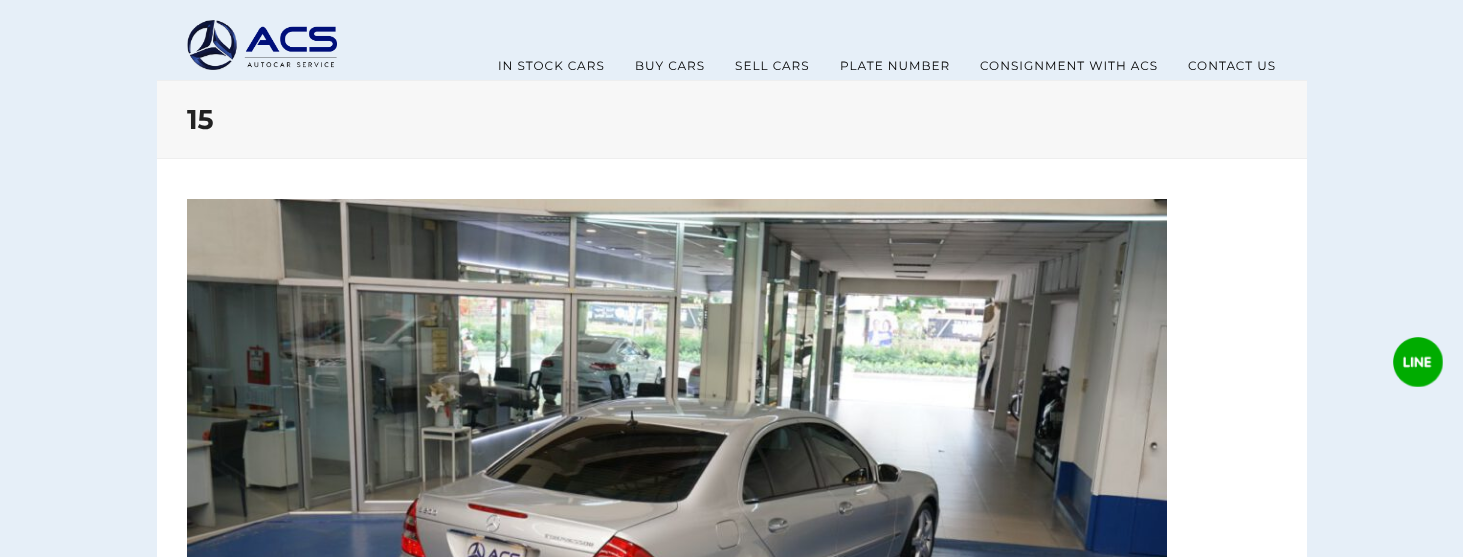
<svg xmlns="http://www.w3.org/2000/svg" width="1463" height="557">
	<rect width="100%" height="100%" fill="#E6EFF8" />
	<rect x="157" y="159" width="1150" height="398" fill="#FFFFFF" />
	<image x="187" y="20" width="150" height="50" href="assets/img1.png" />
	<g font-family="Montserrat" font-size="12" letter-spacing="1" fill="#000000">
		<text x="498" y="70">IN STOCK CARS</text>
		<text x="635" y="70">BUY CARS</text>
		<text x="735" y="70">SELL CARS</text>
		<text x="840" y="70">PLATE NUMBER</text>
		<text x="980" y="70">CONSIGNMENT WITH ACS</text>
		<text x="1188" y="70">CONTACT US</text>
	</g>
	<rect x="157" y="81" width="1150" height="77" fill="#F7F7F7" />
	<rect x="157" y="80" width="1150" height="1" fill="#EEEEEE" />
	<rect x="157" y="158" width="1150" height="1" fill="#EEEEEE" />
	<text x="187" y="129" font-family="Montserrat" font-size="27" font-weight="700" fill="#222222">15</text>
	<image x="187" y="199" width="980" height="358" href="assets/img2.png" />
	<image x="1393" y="337" width="50" height="50" href="assets/img3.png" />
</svg>
